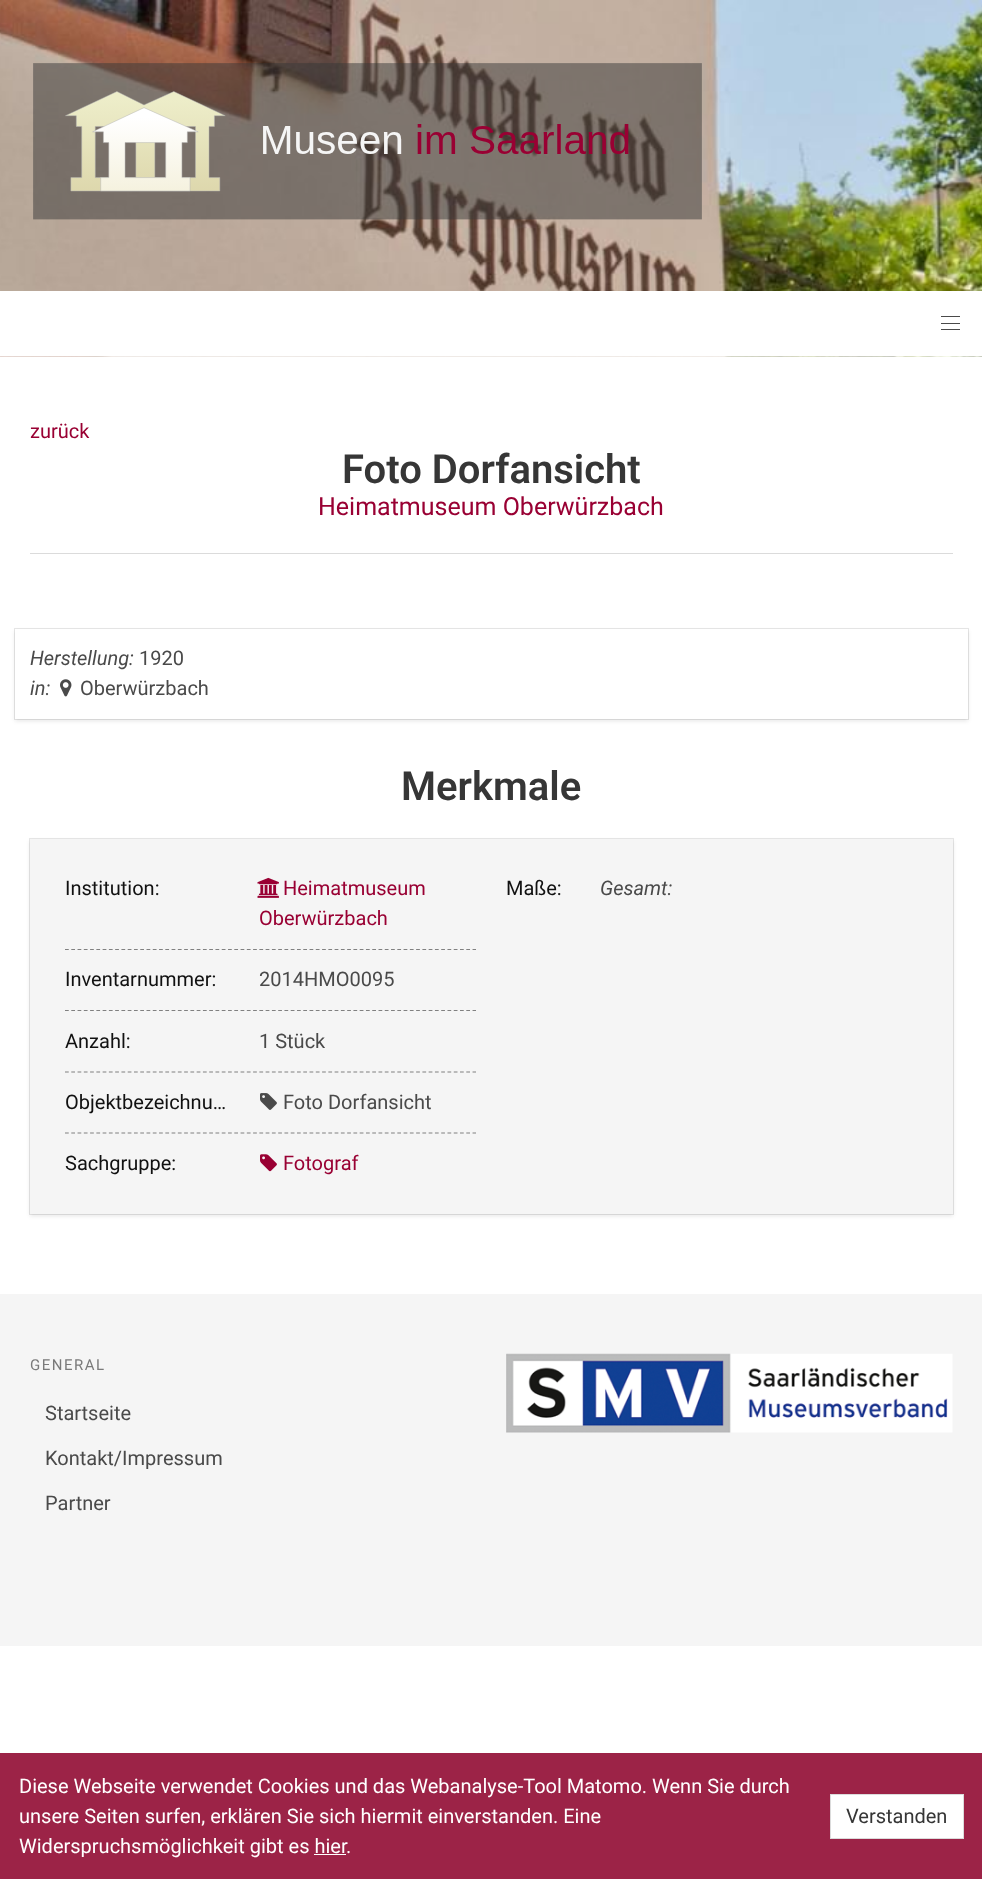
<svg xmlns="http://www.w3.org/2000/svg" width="982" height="1879">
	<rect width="100%" height="100%" fill="#FFFFFF" />
	<image x="0" y="0" width="982" height="357" href="assets/img1.png" />
	<image x="33" y="63" width="669" height="157" href="assets/img2.png" />
	<rect x="0" y="291" width="982" height="65" fill="#FFFFFF" />
	<rect x="941" y="316" width="19" height="1" fill="#4A4A4A" />
	<rect x="941" y="323" width="19" height="1" fill="#4A4A4A" />
	<rect x="941" y="329" width="19" height="1" fill="#4A4A4A" />
	<text x="30" y="438" font-family="Roboto" font-size="20" fill="#990033">zurück</text>
	<text x="342" y="483" font-family="Roboto" font-size="40" font-weight="600" fill="#363636">Foto Dorfansicht</text>
	<text x="318" y="515" font-family="Roboto" font-size="25" fill="#990033">Heimatmuseum Oberwürzbach</text>
	<rect x="30" y="553" width="923" height="1" fill="#DBDBDB" />
	<rect x="14.5" y="628.5" width="954" height="91" fill="none" stroke="#E7E7E7" />
	<rect x="15" y="631" width="953" height="90" fill="#0A0A0A" fill-opacity="0.1" filter="blur(2px)" />
	<rect x="15" y="629" width="953" height="90" fill="#FFFFFF" />
	<text x="30" y="665" font-family="Roboto" font-size="20" font-style="italic" fill="#4A4A4A">Herstellung:</text>
	<text x="139" y="665" font-family="Roboto" font-size="20" fill="#4A4A4A">1920</text>
	<text x="30" y="695" font-family="Roboto" font-size="20" font-style="italic" fill="#4A4A4A">in:</text>
	<image x="60" y="679" width="12" height="18" href="assets/img3.png" />
	<text x="80" y="695" font-family="Roboto" font-size="20" fill="#4A4A4A">Oberwürzbach</text>
	<text x="401" y="800" font-family="Roboto" font-size="40" font-weight="600" fill="#363636">Merkmale</text>
	<rect x="29.5" y="838.5" width="924" height="376" fill="none" stroke="#E7E7E7" />
	<rect x="30" y="841" width="923" height="375" fill="#0A0A0A" fill-opacity="0.1" filter="blur(2px)" />
	<rect x="30" y="839" width="923" height="375" fill="#F5F5F5" />
	<path d="M65 949.5H476" fill="none" stroke="#808080" stroke-width="1.2" stroke-dasharray="3.75 2.52" />
	<text x="65" y="895" font-family="Roboto" font-size="20" fill="#111111">Institution:</text>
	<image x="257" y="877" width="22" height="21" href="assets/img4.png" />
	<g font-family="Roboto" font-size="20" fill="#990033">
		<text x="283" y="895">Heimatmuseum</text>
		<text x="259" y="925">Oberwürzbach</text>
	</g>
	<path d="M65 1010.5H476" fill="none" stroke="#808080" stroke-width="1.2" stroke-dasharray="3.75 2.52" />
	<text x="65" y="986" font-family="Roboto" font-size="20" fill="#111111">Inventarnummer:</text>
	<text x="259" y="986" font-family="Roboto" font-size="20" fill="#4A4A4A">2014HMO0095</text>
	<path d="M65 1072H476" fill="none" stroke="#808080" stroke-width="1.2" stroke-dasharray="3.75 2.52" />
	<text x="65" y="1048" font-family="Roboto" font-size="20" fill="#111111">Anzahl:</text>
	<text x="259" y="1048" font-family="Roboto" font-size="20" fill="#4A4A4A">1 Stück</text>
	<path d="M65 1133H476" fill="none" stroke="#808080" stroke-width="1.2" stroke-dasharray="3.75 2.52" />
	<text x="65" y="1109" font-family="Roboto" font-size="20" fill="#111111">Objektbezeichnu…</text>
	<image x="260" y="1093" width="17" height="17" href="assets/img5.png" />
	<text x="283" y="1109" font-family="Roboto" font-size="20" fill="#4A4A4A">Foto Dorfansicht</text>
	<text x="65" y="1170" font-family="Roboto" font-size="20" fill="#111111">Sachgruppe:</text>
	<image x="260" y="1154" width="17" height="18" href="assets/img6.png" />
	<text x="283" y="1170" font-family="Roboto" font-size="20" fill="#990033">Fotograf</text>
	<text x="506" y="895" font-family="Roboto" font-size="20" fill="#111111">Maße:</text>
	<text x="600" y="895" font-family="Roboto" font-size="20" font-style="italic" fill="#4A4A4A">Gesamt:</text>
	<rect x="0" y="1294" width="982" height="352" fill="#F5F5F5" />
	<text x="30" y="1370" font-family="Roboto" font-size="15" letter-spacing="1.5" fill="#7A7A7A">GENERAL</text>
	<g font-family="Roboto" font-size="20" fill="#4A4A4A">
		<text x="45" y="1420">Startseite</text>
		<text x="45" y="1465">Kontakt/Impressum</text>
		<text x="45" y="1510">Partner</text>
	</g>
	<image x="506" y="1353" width="447" height="80" href="assets/img7.png" />
	<rect x="0" y="1753" width="982" height="126" fill="#9C2347" />
	<g font-family="Roboto" font-size="20" fill="#FFFFFF">
		<text x="19" y="1793">Diese Webseite verwendet Cookies und das Webanalyse-Tool Matomo. Wenn Sie durch</text>
		<text x="19" y="1823">unsere Seiten surfen, erklären Sie sich hiermit einverstanden. Eine</text>
		<text x="19" y="1853">Widerspruchsmöglichkeit gibt es hier</text>
		<text x="346" y="1853">.</text>
	</g>
	<rect x="314" y="1854" width="32" height="1" fill="#FFFFFF" />
	<rect x="830.5" y="1794.5" width="133" height="44" fill="#FFFFFF" stroke="#DBDBDB" />
	<text x="846" y="1823" font-family="Roboto" font-size="20" fill="#363636">Verstanden</text>
</svg>
